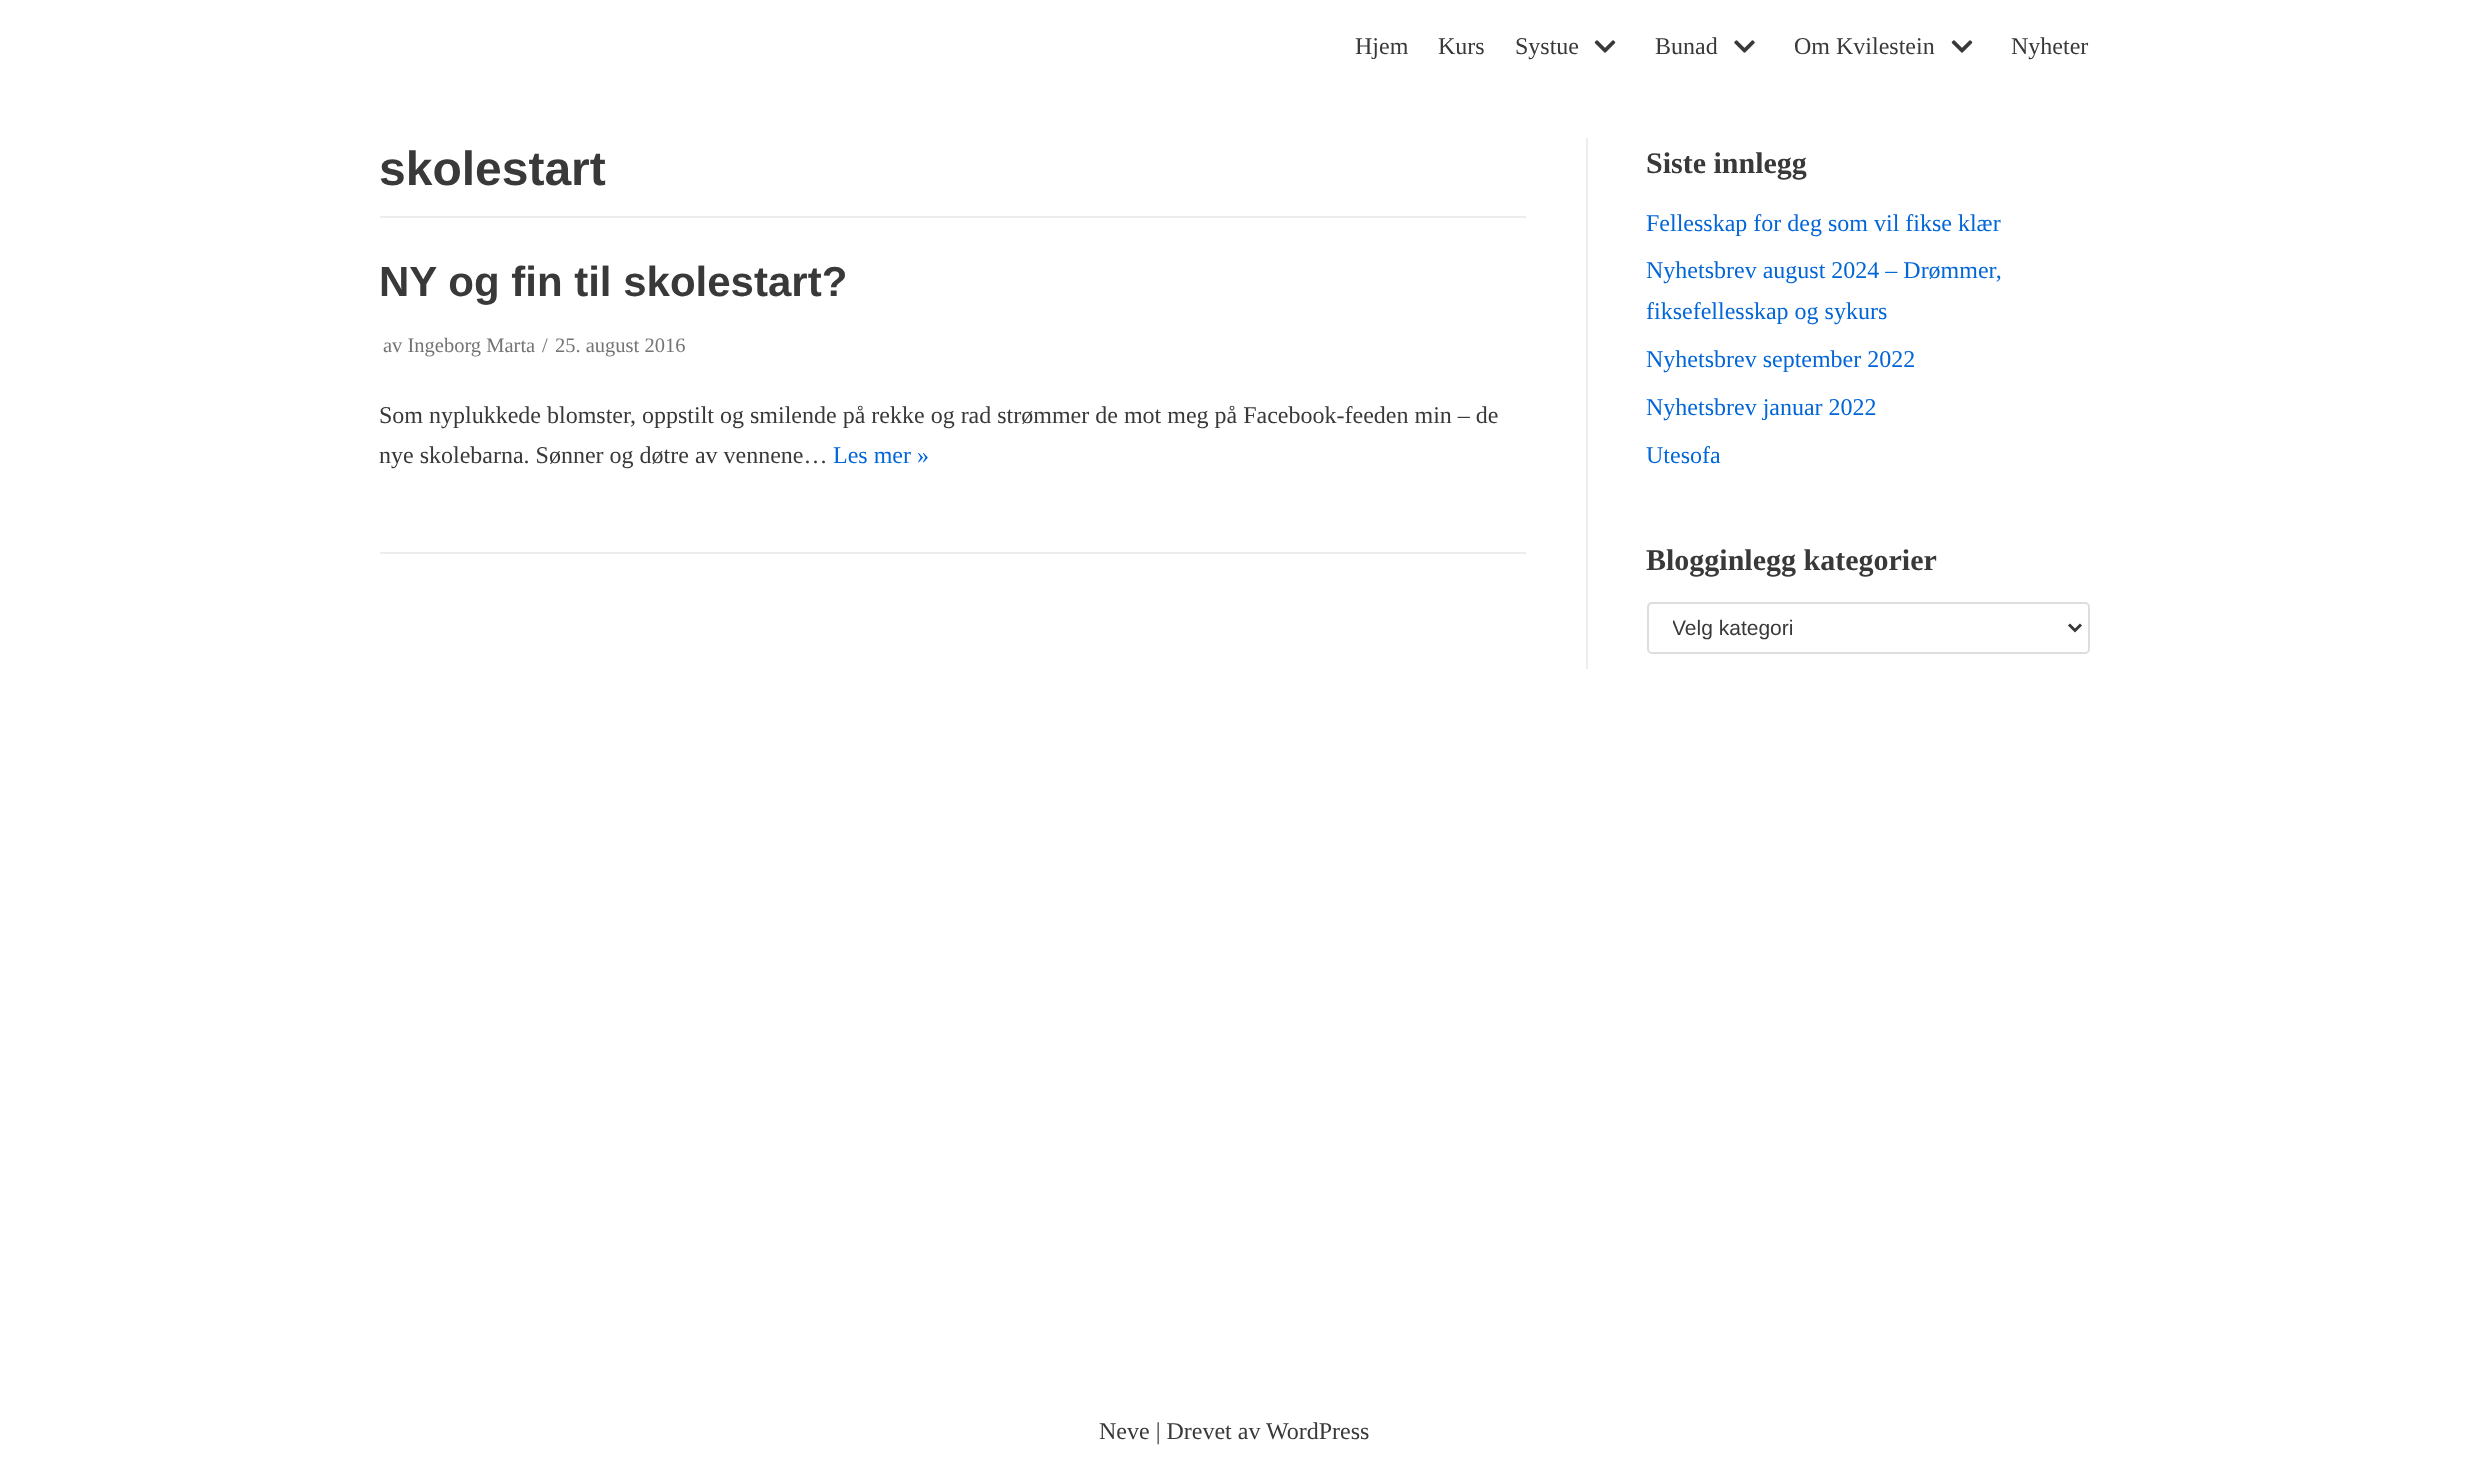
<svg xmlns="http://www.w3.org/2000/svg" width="2467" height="1462">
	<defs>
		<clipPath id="clip1"><rect x="1673" y="614" width="373" height="27" /></clipPath>
	</defs>
	<rect width="100%" height="100%" fill="#FFFFFF" />
	<g font-family="Liberation Serif" font-size="24" fill="#393939">
		<text x="1355" y="54">Hjem</text>
		<text x="1438" y="54">Kurs</text>
		<text x="1515" y="54">Systue</text>
	</g>
	<image x="1594" y="40" width="22" height="13" href="assets/img1.png" />
	<text x="1655" y="54" font-family="Liberation Serif" font-size="24" fill="#393939">Bunad</text>
	<image x="1734" y="40" width="21" height="13" href="assets/img2.png" />
	<text x="1794" y="54" font-family="Liberation Serif" font-size="24" fill="#393939">Om Kvilestein</text>
	<image x="1951" y="40" width="22" height="13" href="assets/img1.png" />
	<text x="2011" y="54" font-family="Liberation Serif" font-size="24" fill="#393939">Nyheter</text>
	<rect x="380" y="216" width="1146" height="2" fill="#EDEDED" />
	<text x="379" y="185" font-family="Liberation Sans" font-size="48" font-weight="700" fill="#393939">skolestart</text>
	<rect x="380" y="552" width="1146" height="2" fill="#EDEDED" />
	<text x="379" y="296" font-family="Liberation Sans" font-size="42" font-weight="700" fill="#393939">NY og fin til skolestart?</text>
	<g font-family="Liberation Serif" font-size="20.5" fill="#747474">
		<text x="383" y="352">av Ingeborg Marta</text>
		<text x="542" y="352">/</text>
		<text x="555" y="352">25. august 2016</text>
	</g>
	<g font-family="Liberation Serif" font-size="24" fill="#393939">
		<text x="379" y="423">Som nyplukkede blomster, oppstilt og smilende på rekke og rad strømmer de mot meg på Facebook-feeden min – de</text>
		<text x="379" y="463">nye skolebarna. Sønner og døtre av vennene…</text>
	</g>
	<text x="833" y="463" font-family="Liberation Serif" font-size="24" fill="#0366D6">Les mer »</text>
	<rect x="1586" y="138" width="2" height="531" fill="#EDEDED" />
	<text x="1646" y="173" font-family="Liberation Serif" font-size="30" font-weight="700" fill="#393939">Siste innlegg</text>
	<g font-family="Liberation Serif" font-size="24" fill="#0366D6">
		<text x="1646" y="231">Fellesskap for deg som vil fikse klær</text>
		<text x="1646" y="278">Nyhetsbrev august 2024 – Drømmer,</text>
		<text x="1646" y="319">fiksefellesskap og sykurs</text>
		<text x="1646" y="367">Nyhetsbrev september 2022</text>
		<text x="1646" y="415">Nyhetsbrev januar 2022</text>
		<text x="1646" y="463">Utesofa</text>
	</g>
	<text x="1646" y="570" font-family="Liberation Serif" font-size="30" font-weight="700" fill="#393939">Blogginlegg kategorier</text>
	<rect x="1648" y="603" width="441" height="50" rx="4" fill="none" stroke="#DDDDDD" stroke-width="2" />
	<path d="M2069 624.5L2075 630.5L2081 624.5" fill="none" stroke="#393939" stroke-width="3" />
	<g clip-path="url(#clip1)">
		<text x="1672" y="635" font-family="Liberation Sans" font-size="21" fill="#393939">Velg kategori</text>
	</g>
	<g font-family="Liberation Serif" font-size="24" fill="#393939">
		<text x="1099" y="1439">Neve | Drevet av</text>
		<text x="1266" y="1439">WordPress</text>
	</g>
</svg>
